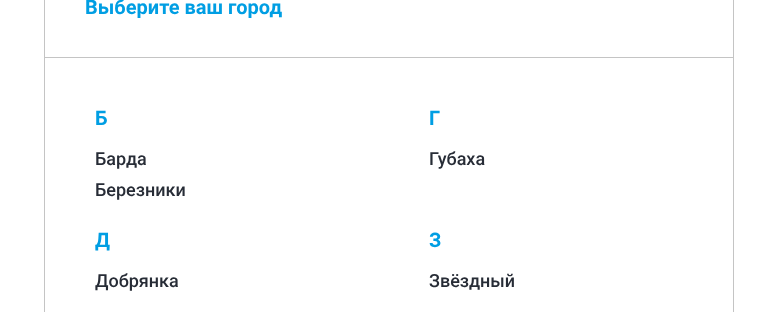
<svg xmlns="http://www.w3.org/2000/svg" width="777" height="312">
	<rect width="100%" height="100%" fill="#FFFFFF" />
	<rect x="44.5" y="-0.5" width="689" height="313" fill="none" stroke="#C4C4C4" />
	<rect x="45" y="57" width="688" height="1" fill="#C4C4C4" />
	<g font-family="Roboto" font-size="20" font-weight="700" fill="#009EE3">
		<text x="85" y="14">Выберите ваш город</text>
		<text x="95" y="125">Б</text>
	</g>
	<g font-family="Roboto" font-size="18" font-weight="500" fill="#272C36">
		<text x="95" y="165">Барда</text>
		<text x="95" y="196">Березники</text>
	</g>
	<text x="429" y="125" font-family="Roboto" font-size="20" font-weight="700" fill="#009EE3">Г</text>
	<text x="429" y="165" font-family="Roboto" font-size="18" font-weight="500" fill="#272C36">Губаха</text>
	<text x="95" y="247" font-family="Roboto" font-size="20" font-weight="700" fill="#009EE3">Д</text>
	<text x="95" y="287" font-family="Roboto" font-size="18" font-weight="500" fill="#272C36">Добрянка</text>
	<text x="429" y="247" font-family="Roboto" font-size="20" font-weight="700" fill="#009EE3">З</text>
	<text x="429" y="287" font-family="Roboto" font-size="18" font-weight="500" fill="#272C36">Звёздный</text>
</svg>
